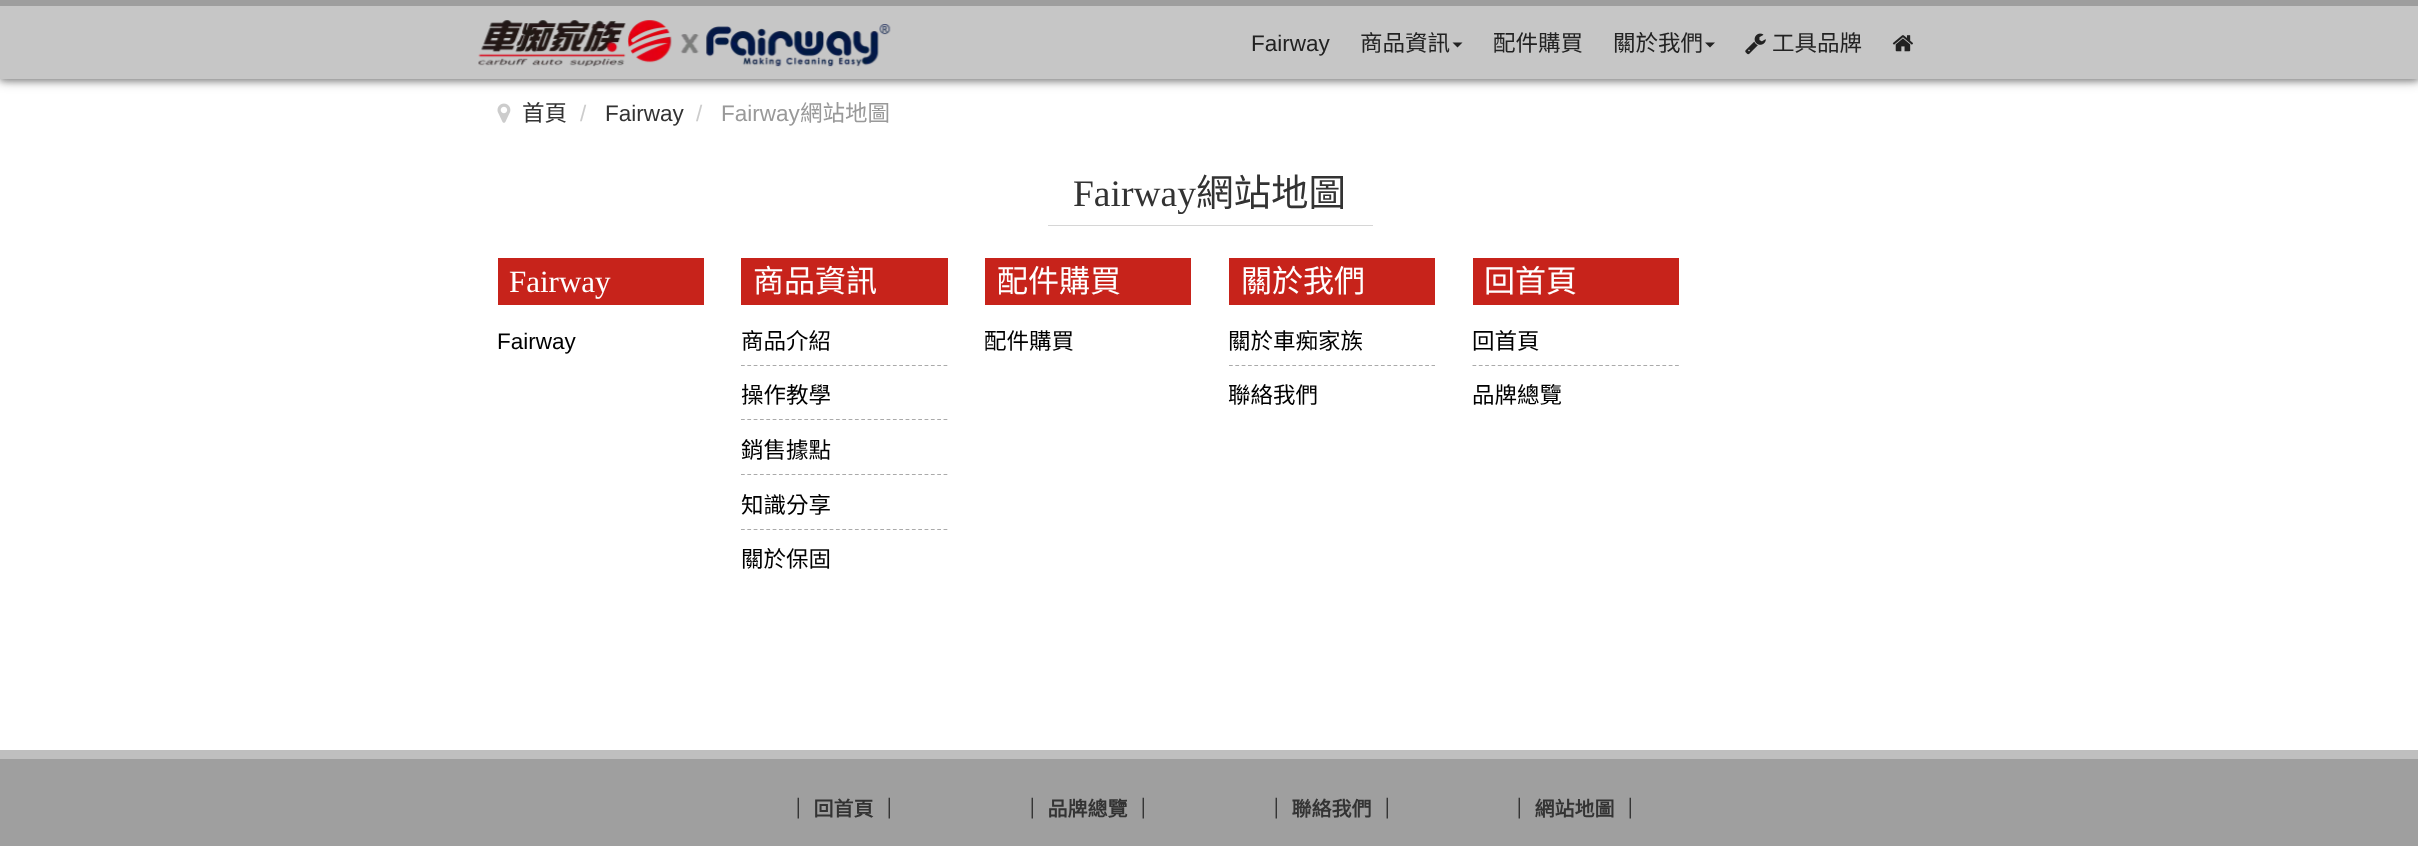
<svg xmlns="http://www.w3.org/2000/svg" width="2418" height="846">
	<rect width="100%" height="100%" fill="#FFFFFF" />
	<rect x="0" y="3" width="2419" height="78" fill="#000000" fill-opacity="0.3" filter="blur(6px)" />
	<rect x="0" y="3" width="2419" height="78" fill="#000000" fill-opacity="0.3" filter="blur(3px)" />
	<rect x="0" y="6" width="2418" height="73" fill="#C6C6C6" />
	<rect x="0" y="0" width="2418" height="6" fill="#9E9E9E" />
	<image x="478" y="20" width="413" height="47" href="assets/img1.png" />
	<text x="1251" y="51" font-family="Liberation Sans" font-size="22.5" fill="#222222">Fairway</text>
	<text x="1360" y="51" font-family="Noto Sans CJK TC" font-size="22.5" fill="#222222">商品資訊</text>
	<path d="M1452.5 42.5H1462.5L1457.5 47.5Z" fill="#222222" />
	<g font-family="Noto Sans CJK TC" font-size="22.5" fill="#222222">
		<text x="1493" y="51">配件購買</text>
		<text x="1613" y="51">關於我們</text>
	</g>
	<path d="M1705 42.5H1715L1710 47.5Z" fill="#222222" />
	<image x="1745" y="33" width="21" height="22" href="assets/img2.png" />
	<text x="1772" y="51" font-family="Noto Sans CJK TC" font-size="22.5" fill="#222222">工具品牌</text>
	<image x="1892" y="35" width="21" height="17" href="assets/img3.png" />
	<image x="497" y="103" width="14" height="20" href="assets/img4.png" />
	<text x="522" y="121" font-family="Noto Sans CJK TC" font-size="22.5" fill="#333333">首頁</text>
	<text x="580" y="121" font-family="Liberation Sans" font-size="22.5" fill="#CCCCCC">/</text>
	<text x="605" y="121" font-family="Liberation Sans" font-size="22.5" fill="#333333">Fairway</text>
	<text x="696" y="121" font-family="Liberation Sans" font-size="22.5" fill="#CCCCCC">/</text>
	<text x="721" y="121" font-family="Liberation Sans" font-size="22.5" fill="#999999">Fairway</text>
	<text x="800" y="121" font-family="Noto Sans CJK TC" font-size="22.5" fill="#999999">網站地圖</text>
	<text x="1073" y="206" font-family="Liberation Serif" font-size="37.5" fill="#333333">Fairway</text>
	<text x="1196" y="206" font-family="Noto Sans CJK TC" font-size="37.5" fill="#333333">網站地圖</text>
	<rect x="1048" y="225" width="325" height="1" fill="#D6D6D6" />
	<rect x="498" y="258" width="206" height="47" fill="#C7231B" />
	<text x="509" y="292" font-family="Liberation Serif" font-size="31" fill="#FFFFFF">Fairway</text>
	<text x="497" y="349" font-family="Liberation Sans" font-size="22.5" fill="#000000">Fairway</text>
	<rect x="741" y="258" width="207" height="47" fill="#C7231B" />
	<text x="753" y="292" font-family="Noto Sans CJK TC" font-size="31" fill="#FFFFFF">商品資訊</text>
	<path d="M741 365.5H947.5" fill="none" stroke="#AAAAAA" stroke-width="1.2" stroke-dasharray="3.75 2.58" />
	<text x="741" y="349" font-family="Noto Sans CJK TC" font-size="22.5" fill="#000000">商品介紹</text>
	<path d="M741 419.5H947.5" fill="none" stroke="#AAAAAA" stroke-width="1.2" stroke-dasharray="3.75 2.58" />
	<text x="741" y="403" font-family="Noto Sans CJK TC" font-size="22.5" fill="#000000">操作教學</text>
	<path d="M741 474.5H947.5" fill="none" stroke="#AAAAAA" stroke-width="1.2" stroke-dasharray="3.75 2.58" />
	<text x="741" y="458" font-family="Noto Sans CJK TC" font-size="22.5" fill="#000000">銷售據點</text>
	<path d="M741 529.5H947.5" fill="none" stroke="#AAAAAA" stroke-width="1.2" stroke-dasharray="3.75 2.58" />
	<g font-family="Noto Sans CJK TC" font-size="22.5" fill="#000000">
		<text x="741" y="513">知識分享</text>
		<text x="741" y="567">關於保固</text>
	</g>
	<rect x="985" y="258" width="206" height="47" fill="#C7231B" />
	<text x="997" y="292" font-family="Noto Sans CJK TC" font-size="31" fill="#FFFFFF">配件購買</text>
	<text x="984" y="349" font-family="Noto Sans CJK TC" font-size="22.5" fill="#000000">配件購買</text>
	<rect x="1229" y="258" width="206" height="47" fill="#C7231B" />
	<text x="1241" y="292" font-family="Noto Sans CJK TC" font-size="31" fill="#FFFFFF">關於我們</text>
	<path d="M1229 365.5H1435" fill="none" stroke="#AAAAAA" stroke-width="1.2" stroke-dasharray="3.75 2.58" />
	<g font-family="Noto Sans CJK TC" font-size="22.5" fill="#000000">
		<text x="1228" y="349">關於車痴家族</text>
		<text x="1228" y="403">聯絡我們</text>
	</g>
	<rect x="1473" y="258" width="206" height="47" fill="#C7231B" />
	<text x="1484" y="292" font-family="Noto Sans CJK TC" font-size="31" fill="#FFFFFF">回首頁</text>
	<path d="M1472.5 365.5H1679" fill="none" stroke="#AAAAAA" stroke-width="1.2" stroke-dasharray="3.75 2.58" />
	<g font-family="Noto Sans CJK TC" font-size="22.5" fill="#000000">
		<text x="1472" y="349">回首頁</text>
		<text x="1472" y="403">品牌總覽</text>
	</g>
	<rect x="0" y="759" width="2418" height="87" fill="#9F9F9F" />
	<rect x="0" y="750" width="2418" height="9" fill="#BFBFBF" />
	<g font-family="Noto Sans CJK TC" font-size="20" font-weight="700" fill="#333333">
		<text x="788" y="816" word-spacing="1">｜ 回首頁 ｜</text>
		<text x="1022" y="816" word-spacing="1">｜ 品牌總覽 ｜</text>
		<text x="1266" y="816" word-spacing="1">｜ 聯絡我們 ｜</text>
		<text x="1509" y="816" word-spacing="1">｜ 網站地圖 ｜</text>
	</g>
</svg>
